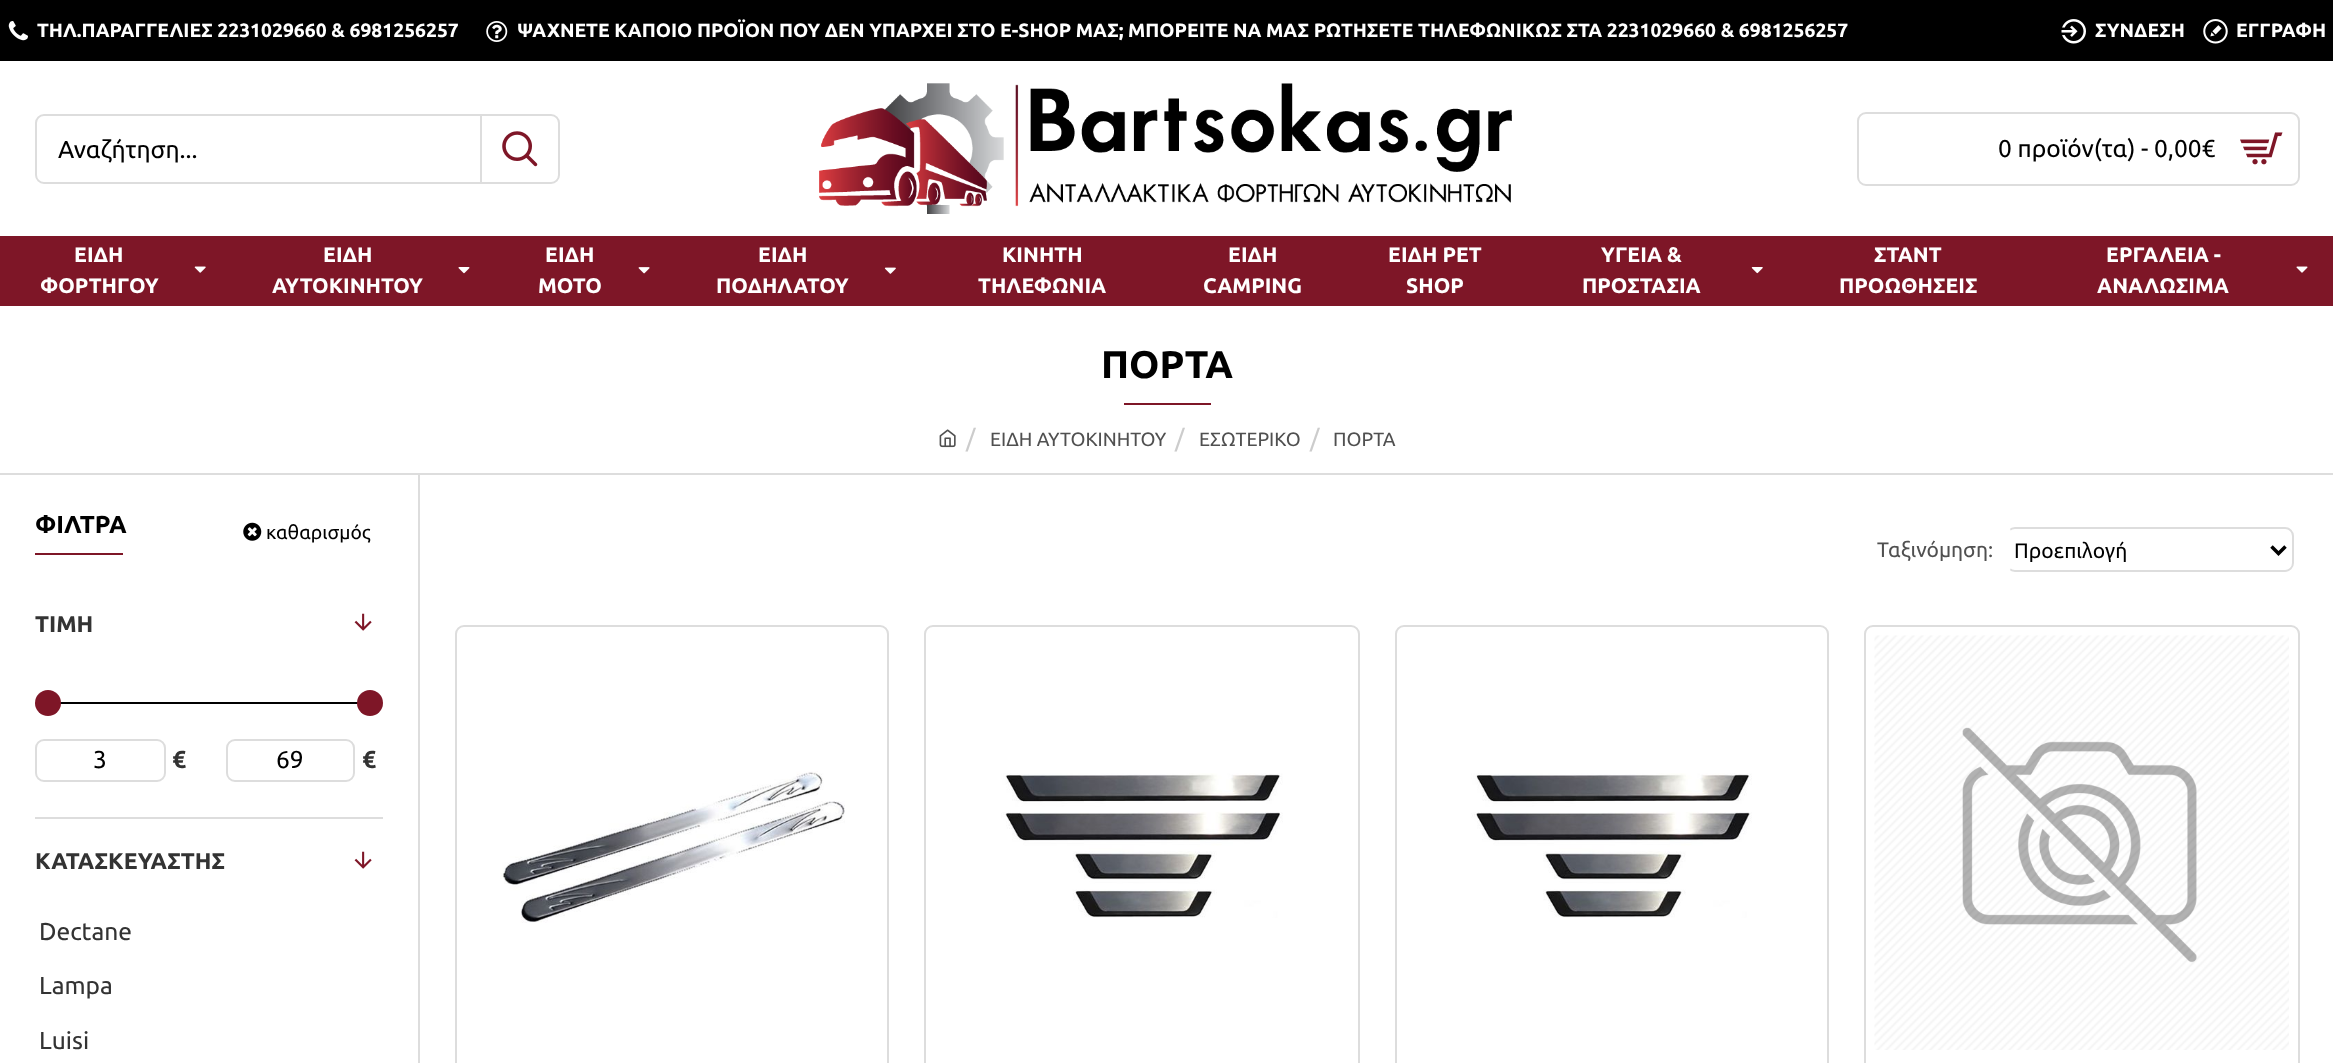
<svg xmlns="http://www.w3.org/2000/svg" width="2333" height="1063">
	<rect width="100%" height="100%" fill="#FFFFFF" />
	<rect x="0" y="0" width="2333" height="61" fill="#000000" />
	<image x="8" y="21" width="20" height="20" href="assets/img1.png" />
	<text x="37" y="37" font-family="Ubuntu" font-size="19.25" font-weight="700" fill="#FFFFFF">ΤΗΛ.ΠΑΡΑΓΓΕΛΙΕΣ 2231029660 &amp; 6981256257</text>
	<image x="486" y="21" width="22" height="21" href="assets/img2.png" />
	<text x="517" y="37" font-family="Ubuntu" font-size="19.25" font-weight="700" fill="#FFFFFF">ΨΑΧΝΕΤΕ ΚΑΠΟΙΟ ΠΡΟΪΟΝ ΠΟΥ ΔΕΝ ΥΠΑΡΧΕΙ ΣΤΟ E-SHOP ΜΑΣ; ΜΠΟΡΕΙΤΕ ΝΑ ΜΑΣ ΡΩΤΗΣΕΤΕ ΤΗΛΕΦΩΝΙΚΩΣ ΣΤΑ 2231029660 &amp; 6981256257</text>
	<image x="2061" y="19" width="25" height="25" href="assets/img3.png" />
	<text x="2095" y="37" font-family="Ubuntu" font-size="19.25" font-weight="700" fill="#FFFFFF">ΣΥΝΔΕΣΗ</text>
	<image x="2203" y="19" width="25" height="25" href="assets/img4.png" />
	<text x="2236" y="37" font-family="Ubuntu" font-size="19.25" font-weight="700" fill="#FFFFFF">ΕΓΓΡΑΦΗ</text>
	<rect x="36" y="115" width="523" height="68" rx="8" fill="none" stroke="#DDDDDD" stroke-width="2" />
	<text x="58" y="158" font-family="Ubuntu" font-size="24.5" fill="#000000">Αναζήτηση...</text>
	<rect x="480" y="116" width="2" height="66" fill="#DDDDDD" />
	<image x="502" y="131" width="36" height="36" href="assets/img5.png" />
	<image x="819" y="83" width="693" height="131" href="assets/img6.png" />
	<rect x="1858" y="113" width="441" height="72" rx="8" fill="none" stroke="#DDDDDD" stroke-width="2" />
	<text x="1998" y="157" font-family="Ubuntu" font-size="24.5" fill="#000000">0 προϊόν(τα) - 0,00€</text>
	<image x="2240" y="132" width="43" height="33" href="assets/img7.png" />
	<rect x="0" y="236" width="2333" height="70" fill="#7E1627" />
	<g font-family="Ubuntu" font-size="21" font-weight="700" fill="#FFFFFF">
		<text x="74" y="262">ΕΙΔΗ</text>
		<text x="40" y="293">ΦΟΡΤΗΓΟΥ</text>
	</g>
	<image x="194" y="266" width="12" height="7" href="assets/img8.png" />
	<g font-family="Ubuntu" font-size="21" font-weight="700" fill="#FFFFFF">
		<text x="323" y="262">ΕΙΔΗ</text>
		<text x="272" y="293">ΑΥΤΟΚΙΝΗΤΟΥ</text>
	</g>
	<image x="458" y="267" width="12" height="7" href="assets/img9.png" />
	<g font-family="Ubuntu" font-size="21" font-weight="700" fill="#FFFFFF">
		<text x="545" y="262">ΕΙΔΗ</text>
		<text x="538" y="293">ΜΟΤΟ</text>
	</g>
	<image x="638" y="267" width="12" height="7" href="assets/img10.png" />
	<g font-family="Ubuntu" font-size="21" font-weight="700" fill="#FFFFFF">
		<text x="758" y="262">ΕΙΔΗ</text>
		<text x="716" y="293">ΠΟΔΗΛΑΤΟΥ</text>
	</g>
	<image x="884" y="267" width="12" height="7" href="assets/img11.png" />
	<g font-family="Ubuntu" font-size="21" font-weight="700" fill="#FFFFFF">
		<text x="1002" y="262">ΚΙΝΗΤΗ</text>
		<text x="978" y="293">ΤΗΛΕΦΩΝΙΑ</text>
		<text x="1228" y="262">ΕΙΔΗ</text>
		<text x="1203" y="293">CAMPING</text>
		<text x="1388" y="262">ΕΙΔΗ PET</text>
		<text x="1406" y="293">SHOP</text>
		<text x="1601" y="262">ΥΓΕΙΑ &amp;</text>
		<text x="1582" y="293">ΠΡΟΣΤΑΣΙΑ</text>
	</g>
	<image x="1751" y="267" width="12" height="7" href="assets/img12.png" />
	<g font-family="Ubuntu" font-size="21" font-weight="700" fill="#FFFFFF">
		<text x="1874" y="262">ΣΤΑΝΤ</text>
		<text x="1839" y="293">ΠΡΟΩΘΗΣΕΙΣ</text>
		<text x="2106" y="262">ΕΡΓΑΛΕΙΑ -</text>
		<text x="2097" y="293">ΑΝΑΛΩΣΙΜΑ</text>
	</g>
	<image x="2296" y="266" width="12" height="7" href="assets/img13.png" />
	<text x="1101" y="378" font-family="Ubuntu" font-size="38.5" font-weight="700" fill="#000000">ΠΟΡΤΑ</text>
	<rect x="1124" y="403" width="87" height="2" fill="#7E1627" />
	<image x="939" y="429" width="17" height="19" href="assets/img14.png" />
	<text x="966" y="447" font-family="Ubuntu" font-size="24.5" fill="#CCCCCC">/</text>
	<text x="990" y="446" font-family="Ubuntu" font-size="19.25" fill="#505050">ΕΙΔΗ ΑΥΤΟΚΙΝΗΤΟΥ</text>
	<text x="1175" y="447" font-family="Ubuntu" font-size="24.5" fill="#CCCCCC">/</text>
	<text x="1199" y="446" font-family="Ubuntu" font-size="19.25" fill="#505050">ΕΣΩΤΕΡΙΚΟ</text>
	<text x="1310" y="447" font-family="Ubuntu" font-size="24.5" fill="#CCCCCC">/</text>
	<text x="1333" y="446" font-family="Ubuntu" font-size="19.25" fill="#505050">ΠΟΡΤΑ</text>
	<rect x="0" y="473" width="2333" height="2" fill="#DDDDDD" />
	<rect x="418" y="474" width="2" height="589" fill="#DDDDDD" />
	<text x="35" y="533" font-family="Ubuntu" font-size="24.5" font-weight="700" fill="#000000">ΦΙΛΤΡΑ</text>
	<image x="243" y="522" width="19" height="19" href="assets/img15.png" />
	<text x="266" y="539" font-family="Ubuntu" font-size="19.25" fill="#000000">καθαρισμός</text>
	<rect x="35" y="553" width="88" height="2" fill="#7E1627" />
	<text x="35" y="632" font-family="Ubuntu" font-size="22.75" font-weight="700" fill="#333333">ΤΙΜΗ</text>
	<image x="354" y="613" width="18" height="18" href="assets/img16.png" />
	<path d="M58 702H362H368L371 703L362 704H58L49 703L52 702Z" fill="#000000" />
	<circle cx="48" cy="703" r="13" fill="#7E1627" />
	<circle cx="370" cy="703" r="13" fill="#7E1627" />
	<rect x="36" y="740" width="129" height="41" rx="8" fill="none" stroke="#DDDDDD" stroke-width="2" />
	<text x="93" y="768" font-family="Ubuntu" font-size="24.5" fill="#000000">3</text>
	<text x="172" y="768" font-family="Ubuntu" font-size="24.5" font-weight="700" fill="#333333">€</text>
	<rect x="227" y="740" width="127" height="41" rx="8" fill="none" stroke="#DDDDDD" stroke-width="2" />
	<text x="276" y="768" font-family="Ubuntu" font-size="24.5" fill="#000000">69</text>
	<text x="362" y="768" font-family="Ubuntu" font-size="24.5" font-weight="700" fill="#333333">€</text>
	<rect x="35" y="817" width="348" height="2" fill="#DDDDDD" />
	<text x="35" y="869" font-family="Ubuntu" font-size="22.75" font-weight="700" fill="#333333">ΚΑΤΑΣΚΕΥΑΣΤΗΣ</text>
	<image x="354" y="851" width="18" height="18" href="assets/img16.png" />
	<g font-family="Ubuntu" font-size="24.5" fill="#333333">
		<text x="39" y="940">Dectane</text>
		<text x="39" y="994">Lampa</text>
		<text x="39" y="1049">Luisi</text>
	</g>
	<rect x="2007" y="528" width="286" height="43" rx="8" fill="none" stroke="#DDDDDD" stroke-width="2" />
	<rect x="1860" y="527" width="151" height="45" rx="5" fill="#FFFFFF" />
	<text x="1877" y="557" font-family="Ubuntu" font-size="21" fill="#505050">Ταξινόμηση:</text>
	<path d="M2271.5 546.5L2278.5 553.5L2285.5 546.5" fill="none" stroke="#000000" stroke-width="3.5" />
	<text x="2014" y="558" font-family="Ubuntu" font-size="21" fill="#000000">Προεπιλογή</text>
	<rect x="456" y="626" width="432" height="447" rx="8" fill="none" stroke="#DDDDDD" stroke-width="2" />
	<image x="500" y="771" width="345" height="152" href="assets/img17.png" />
	<rect x="925" y="626" width="434" height="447" rx="8" fill="none" stroke="#DDDDDD" stroke-width="2" />
	<image x="1001" y="773" width="282" height="145" href="assets/img18.png" />
	<rect x="1396" y="626" width="432" height="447" rx="8" fill="none" stroke="#DDDDDD" stroke-width="2" />
	<image x="1471" y="773" width="281" height="145" href="assets/img19.png" />
	<rect x="1865" y="626" width="434" height="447" rx="8" fill="none" stroke="#DDDDDD" stroke-width="2" />
	<image x="1874" y="635" width="415" height="415" href="assets/img20.png" />
</svg>
